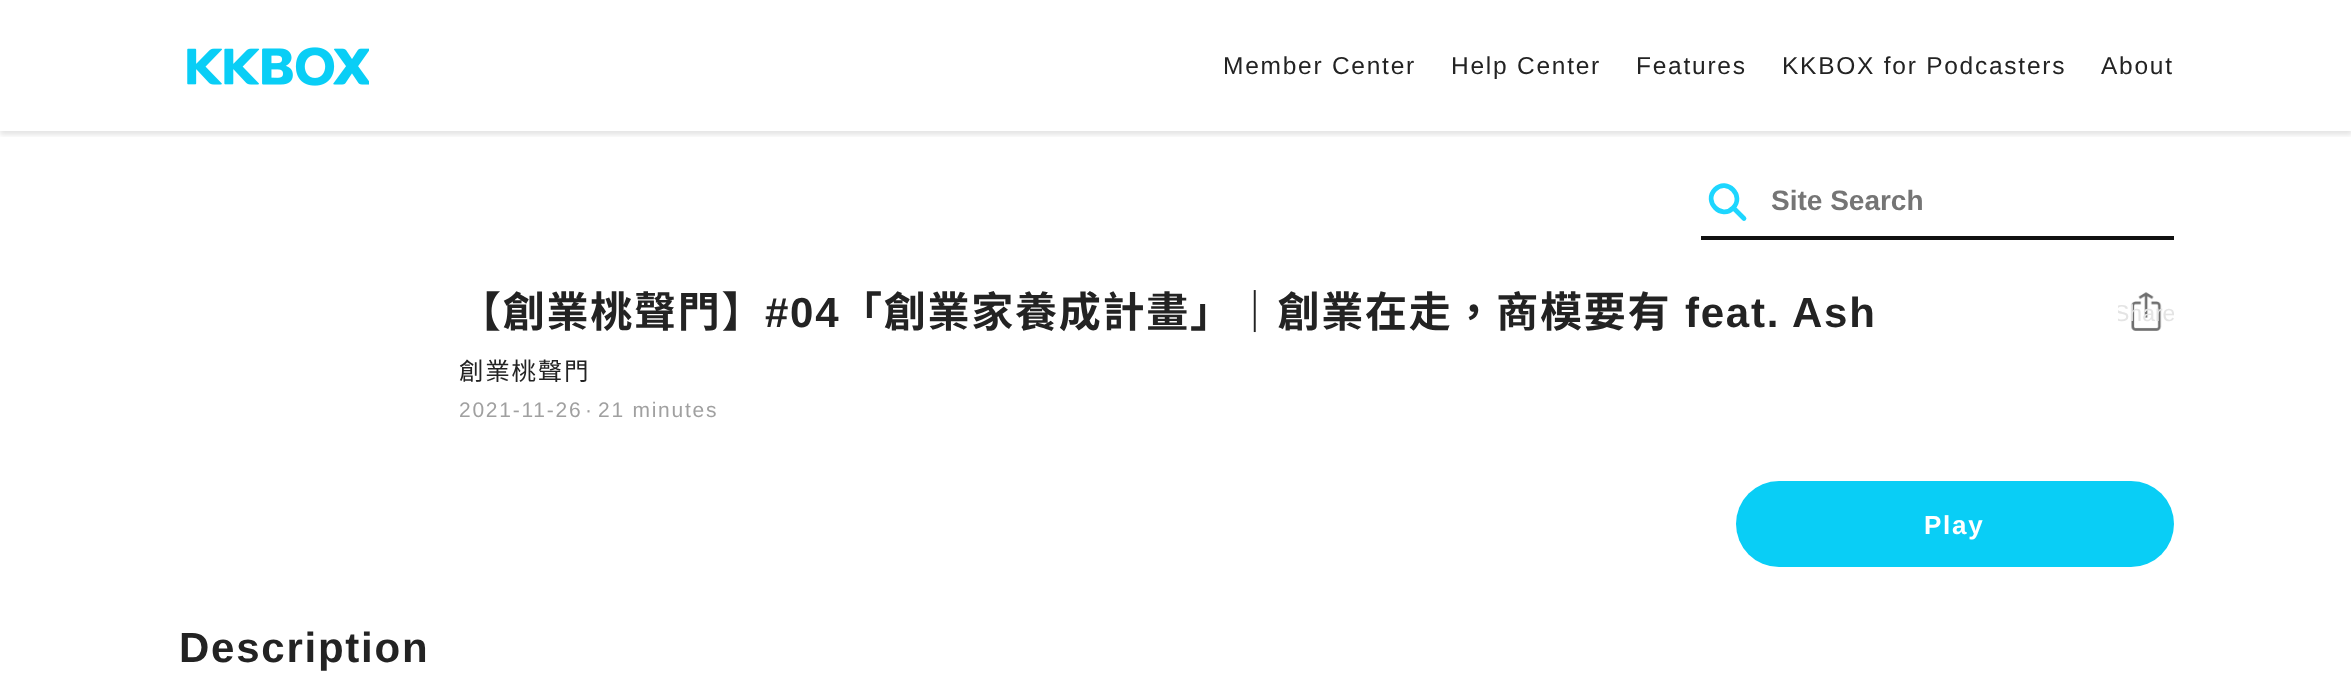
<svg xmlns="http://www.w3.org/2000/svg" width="2351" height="688">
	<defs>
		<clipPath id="clip1"><rect x="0" y="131" width="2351" height="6" /></clipPath>
		<clipPath id="clip2"><rect x="2118" y="285" width="56" height="56" /></clipPath>
	</defs>
	<rect width="100%" height="100%" fill="#FFFFFF" />
	<g clip-path="url(#clip1)">
		<rect x="0" y="4" width="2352" height="131" fill="#000000" fill-opacity="0.1" filter="blur(2.5px)" />
	</g>
	<image x="187" y="47" width="182" height="39" href="assets/img1.png" />
	<g font-family="Liberation Sans" font-size="24.5" letter-spacing="1.75" fill="#232323">
		<text x="1223" y="74">Member Center</text>
		<text x="1451" y="74">Help Center</text>
		<text x="1636" y="74">Features</text>
		<text x="1782" y="74">KKBOX for Podcasters</text>
		<text x="2101" y="74">About</text>
	</g>
	<rect x="1701" y="236" width="473" height="4" fill="#111111" />
	<path d="M1715 189.5C1727 177.5 1745 196 1733 208C1721.5 220 1703 201.5 1715 189.5ZM1734 208.5L1744 218.5" fill="none" stroke="#1DD6FF" stroke-width="4.7" stroke-linecap="round" stroke-linejoin="round" />
	<text x="1771" y="210" font-family="Liberation Sans" font-size="28" font-weight="700" fill="#757575">Site Search</text>
	<text x="459" y="327" font-family="Noto Sans CJK TC" font-size="42" font-weight="700" letter-spacing="1.75" fill="#232323">【創業桃聲門】</text>
	<text x="765" y="327" font-family="Liberation Sans" font-size="42" font-weight="700" letter-spacing="1.75" fill="#232323">#04</text>
	<text x="840" y="327" font-family="Noto Sans CJK TC" font-size="42" font-weight="700" letter-spacing="1.75" fill="#232323">「創業家養成計畫」｜創業在走，商模要有</text>
	<text x="1685" y="327" font-family="Liberation Sans" font-size="42" font-weight="700" letter-spacing="1.75" fill="#232323">feat. Ash</text>
	<text x="459" y="380" font-family="Noto Sans CJK TC" font-size="24.5" letter-spacing="1.75" fill="#232323">創業桃聲門</text>
	<g font-family="Liberation Sans" font-size="21" letter-spacing="1.75" fill="#A0A0A0">
		<text x="459" y="417">2021-11-26</text>
		<text x="585" y="417">·</text>
		<text x="598" y="417">21 minutes</text>
	</g>
	<image x="2131" y="292" width="31" height="39" href="assets/img2.png" />
	<g clip-path="url(#clip2)">
		<text x="2114" y="321" font-family="Liberation Sans" font-size="23" fill="#E4E4E4">Share</text>
	</g>
	<rect x="1736" y="481" width="438" height="86" rx="43" fill="#09CEF6" />
	<text x="1924" y="534" font-family="Liberation Sans" font-size="26" font-weight="700" letter-spacing="1.75" fill="#FFFFFF">Play</text>
	<text x="179" y="662" font-family="Liberation Sans" font-size="42" font-weight="700" letter-spacing="1.75" fill="#232323">Description</text>
</svg>
